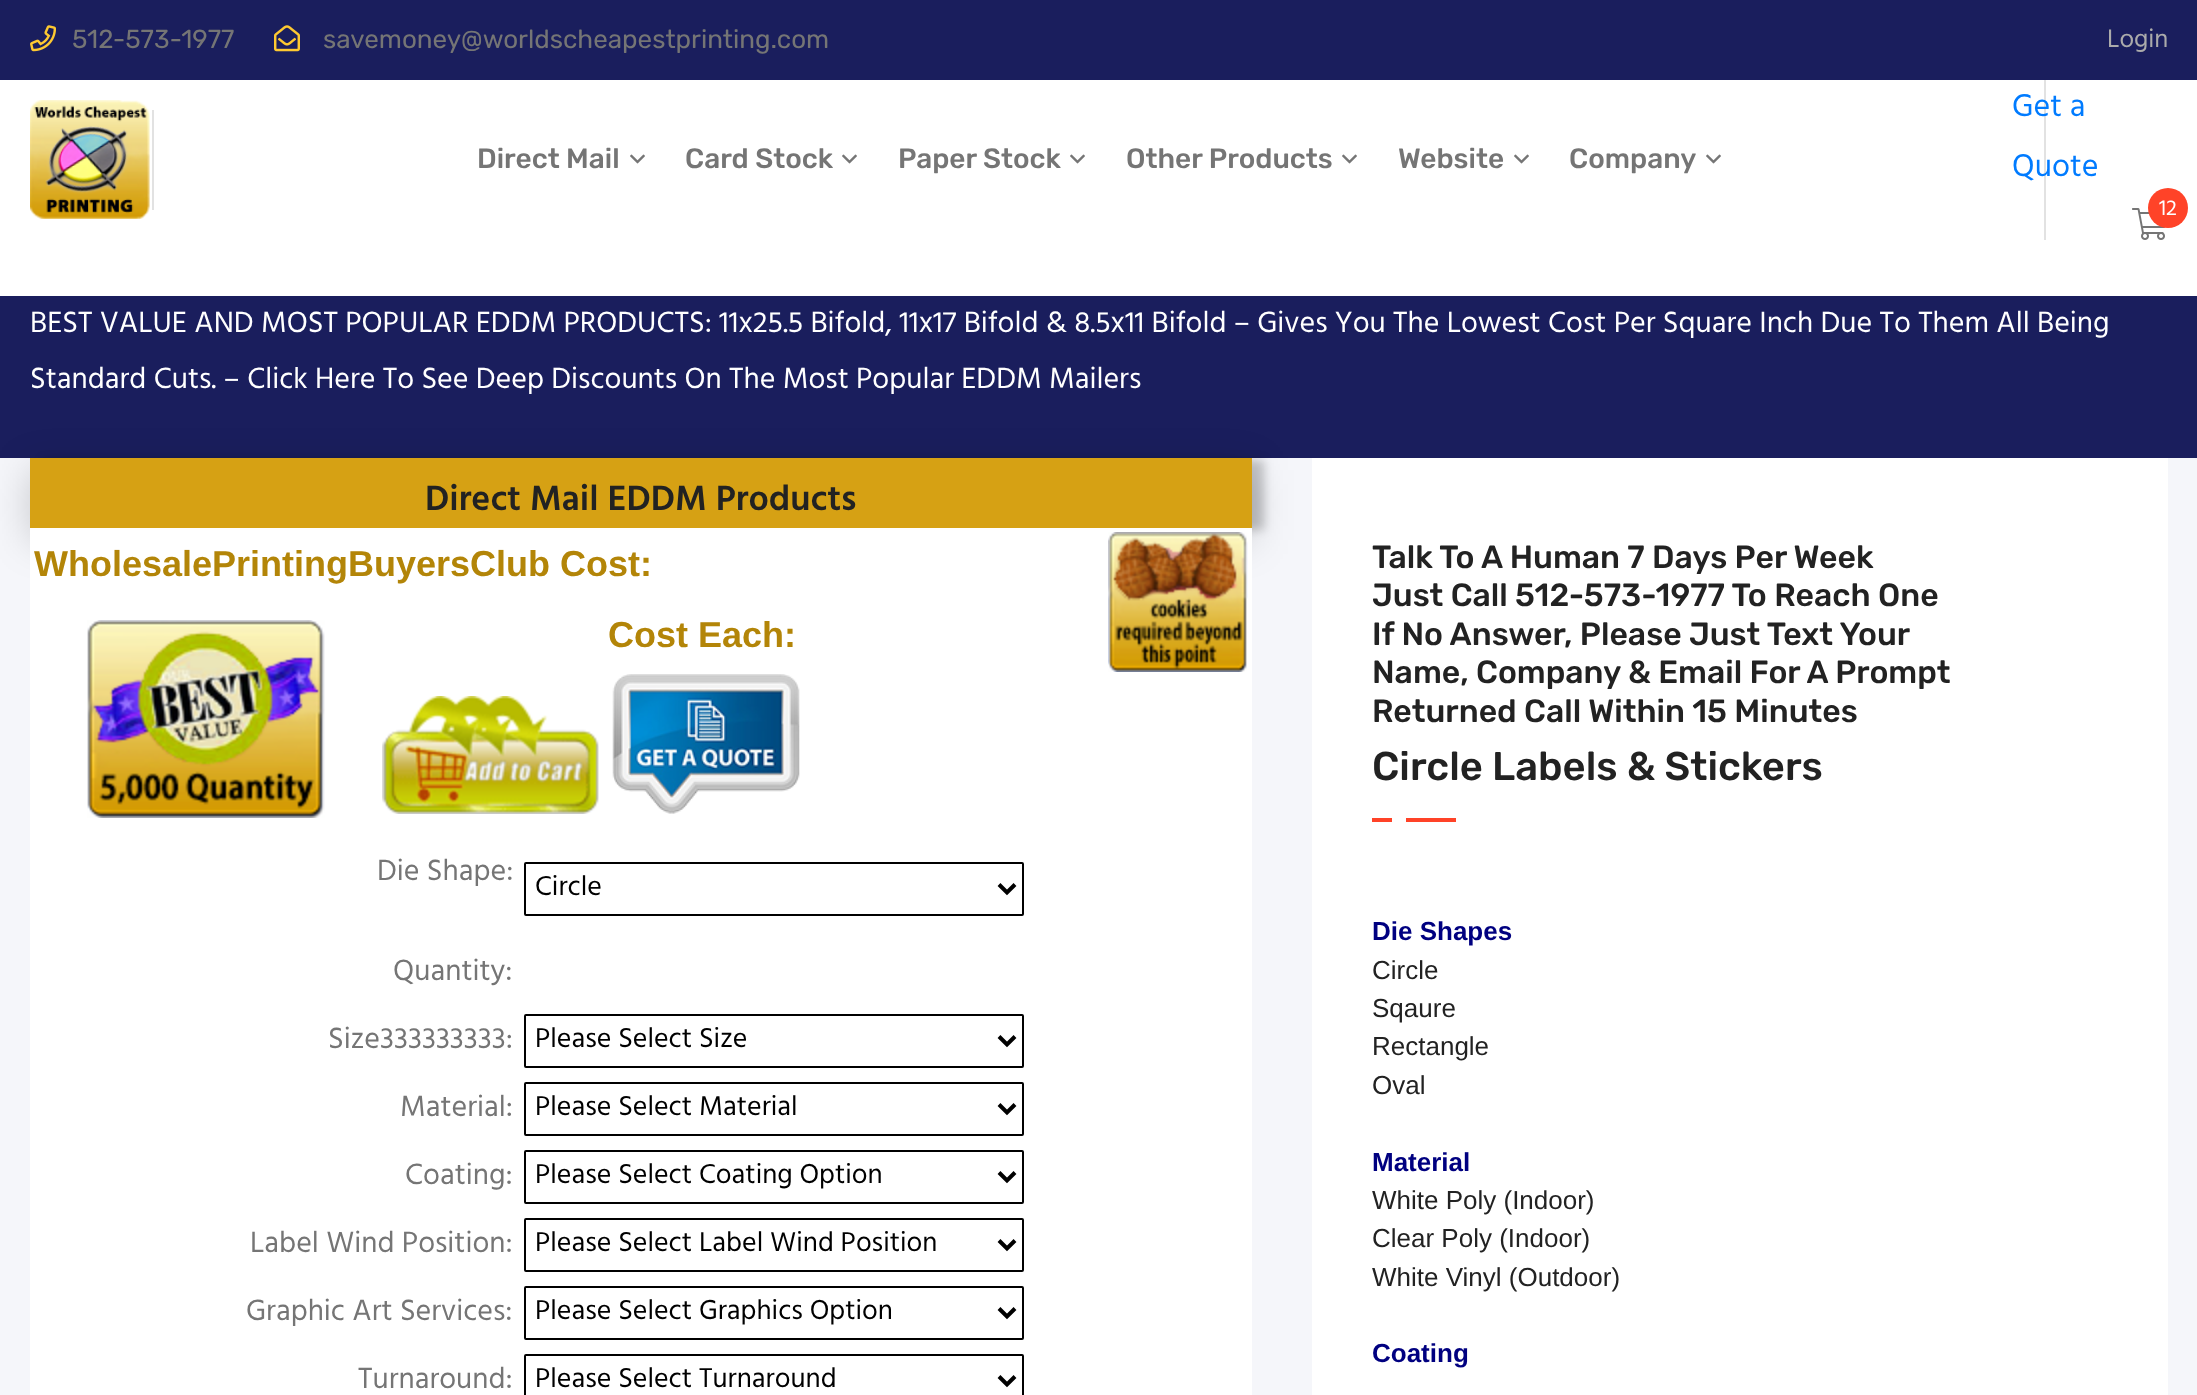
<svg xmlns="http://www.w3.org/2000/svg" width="2197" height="1395">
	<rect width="100%" height="100%" fill="#FFFFFF" />
	<rect x="0" y="0" width="2197" height="80" fill="#1A1E5D" />
	<image x="30" y="25" width="26" height="27" href="assets/img1.png" />
	<text x="72" y="48" font-family="Rubik" font-size="26" fill="#757575">512-573-1977</text>
	<image x="274" y="25" width="26" height="27" href="assets/img2.png" />
	<text x="323" y="48" font-family="Rubik" font-size="26" fill="#757575">savemoney@worldscheapestprinting.com</text>
	<text x="2107" y="47" font-family="Hind" font-size="26" fill="#ABABAB">Login</text>
	<rect x="152" y="110" width="2" height="100" fill="#E2E2E2" />
	<image x="30" y="100" width="120" height="119" href="assets/img3.png" />
	<text x="477" y="168" font-family="Rubik" font-size="28" font-weight="500" fill="#757575">Direct Mail</text>
	<image x="630" y="154" width="15" height="10" href="assets/img4.png" />
	<text x="685" y="168" font-family="Rubik" font-size="28" font-weight="500" fill="#757575">Card Stock</text>
	<image x="842" y="154" width="15" height="10" href="assets/img4.png" />
	<text x="898" y="168" font-family="Rubik" font-size="28" font-weight="500" fill="#757575">Paper Stock</text>
	<image x="1070" y="154" width="15" height="10" href="assets/img4.png" />
	<text x="1126" y="168" font-family="Rubik" font-size="28" font-weight="500" fill="#757575">Other Products</text>
	<image x="1342" y="154" width="15" height="10" href="assets/img4.png" />
	<text x="1398" y="168" font-family="Rubik" font-size="28" font-weight="500" fill="#757575">Website</text>
	<image x="1514" y="154" width="15" height="10" href="assets/img4.png" />
	<text x="1569" y="168" font-family="Rubik" font-size="28" font-weight="500" fill="#757575">Company</text>
	<image x="1706" y="154" width="15" height="10" href="assets/img4.png" />
	<rect x="2044" y="80" width="2" height="160" fill="#E2E2E2" />
	<g font-family="Hind" font-size="32" fill="#007BFF">
		<text x="2012" y="116">Get a</text>
		<text x="2012" y="176">Quote</text>
	</g>
	<image x="2132" y="208" width="34" height="32" href="assets/img5.png" />
	<circle cx="2168" cy="208" r="20" fill="#FF4328" />
	<text x="2159" y="215" font-family="Hind" font-size="22" fill="#FFFFFF">12</text>
	<rect x="0" y="296" width="2197" height="162" fill="#1A1E5D" />
	<g font-family="Hind" font-size="30" fill="#FFFFFF">
		<text x="30" y="332">BEST VALUE AND MOST POPULAR EDDM PRODUCTS: 11x25.5 Bifold, 11x17 Bifold &amp; 8.5x11 Bifold – Gives You The Lowest Cost Per Square Inch Due To Them All Being</text>
		<text x="30" y="388">Standard Cuts. – Click Here To See Deep Discounts On The Most Popular EDDM Mailers</text>
	</g>
	<rect x="0" y="458" width="2197" height="937" fill="#F5F6FA" />
	<rect x="30" y="470" width="1222" height="70" fill="#000000" fill-opacity="0.19" filter="blur(20px)" />
	<rect x="42" y="460" width="1222" height="70" fill="#000000" fill-opacity="0.2" filter="blur(5px)" />
	<rect x="30" y="458" width="1222" height="70" fill="#D6A114" />
	<text x="425" y="510" font-family="Hind" font-size="36" font-weight="600" fill="#222222">Direct Mail EDDM Products</text>
	<rect x="30" y="528" width="1222" height="867" fill="#FFFFFF" />
	<text x="34" y="576" font-family="Liberation Sans" font-size="36" font-weight="700" fill="#B38508">WholesalePrintingBuyersClub Cost:</text>
	<image x="87" y="620" width="238" height="198" href="assets/img6.png" />
	<text x="608" y="647" font-family="Liberation Sans" font-size="36" font-weight="700" fill="#B38508">Cost Each:</text>
	<image x="382" y="696" width="217" height="118" href="assets/img7.png" />
	<image x="612" y="674" width="188" height="140" href="assets/img8.png" />
	<image x="1108" y="532" width="140" height="140" href="assets/img9.png" />
	<text x="377" y="880" font-family="Hind" font-size="30" fill="#757575">Die Shape:</text>
	<rect x="525" y="863" width="498" height="52" rx="1" fill="none" stroke="#000000" stroke-width="2" />
	<path d="M999 884.5L1007 892.5L1015 884.5" fill="none" stroke="#000000" stroke-width="4" />
	<text x="535" y="895" font-family="Hind" font-size="28" fill="#000000">Circle</text>
	<g font-family="Hind" font-size="30" fill="#757575">
		<text x="393" y="980">Quantity:</text>
		<text x="328" y="1048">Size333333333:</text>
	</g>
	<rect x="525" y="1015" width="498" height="52" rx="1" fill="none" stroke="#000000" stroke-width="2" />
	<path d="M999 1036.5L1007 1044.5L1015 1036.5" fill="none" stroke="#000000" stroke-width="4" />
	<text x="535" y="1047" font-family="Hind" font-size="28" fill="#000000">Please Select Size</text>
	<text x="400" y="1116" font-family="Hind" font-size="30" fill="#757575">Material:</text>
	<rect x="525" y="1083" width="498" height="52" rx="1" fill="none" stroke="#000000" stroke-width="2" />
	<path d="M999 1104.5L1007 1112.5L1015 1104.5" fill="none" stroke="#000000" stroke-width="4" />
	<text x="535" y="1115" font-family="Hind" font-size="28" fill="#000000">Please Select Material</text>
	<text x="405" y="1184" font-family="Hind" font-size="30" fill="#757575">Coating:</text>
	<rect x="525" y="1151" width="498" height="52" rx="1" fill="none" stroke="#000000" stroke-width="2" />
	<path d="M999 1172.5L1007 1180.5L1015 1172.5" fill="none" stroke="#000000" stroke-width="4" />
	<text x="535" y="1183" font-family="Hind" font-size="28" fill="#000000">Please Select Coating Option</text>
	<text x="250" y="1252" font-family="Hind" font-size="30" fill="#757575">Label Wind Position:</text>
	<rect x="525" y="1219" width="498" height="52" rx="1" fill="none" stroke="#000000" stroke-width="2" />
	<path d="M999 1240.5L1007 1248.5L1015 1240.5" fill="none" stroke="#000000" stroke-width="4" />
	<text x="535" y="1251" font-family="Hind" font-size="28" fill="#000000">Please Select Label Wind Position</text>
	<text x="246" y="1320" font-family="Hind" font-size="30" fill="#757575">Graphic Art Services:</text>
	<rect x="525" y="1287" width="498" height="52" rx="1" fill="none" stroke="#000000" stroke-width="2" />
	<path d="M999 1308.5L1007 1316.5L1015 1308.5" fill="none" stroke="#000000" stroke-width="4" />
	<text x="535" y="1319" font-family="Hind" font-size="28" fill="#000000">Please Select Graphics Option</text>
	<text x="358" y="1388" font-family="Hind" font-size="30" fill="#757575">Turnaround:</text>
	<rect x="525" y="1355" width="498" height="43" rx="1" fill="none" stroke="#000000" stroke-width="2" />
	<path d="M999 1376.5L1007 1384.5L1015 1376.5" fill="none" stroke="#000000" stroke-width="4" />
	<text x="535" y="1387" font-family="Hind" font-size="28" fill="#000000">Please Select Turnaround</text>
	<rect x="1312" y="458" width="856" height="937" fill="#FFFFFF" />
	<g font-family="Rubik" font-size="32" font-weight="500" fill="#222222">
		<text x="1372" y="568">Talk To A Human 7 Days Per Week</text>
		<text x="1372" y="606">Just Call 512-573-1977 To Reach One</text>
		<text x="1372" y="645">If No Answer, Please Just Text Your</text>
		<text x="1372" y="683">Name, Company &amp; Email For A Prompt</text>
		<text x="1372" y="722">Returned Call Within 15 Minutes</text>
	</g>
	<text x="1372" y="780" font-family="Rubik" font-size="40" font-weight="500" fill="#222222">Circle Labels &amp; Stickers</text>
	<rect x="1372" y="818" width="20" height="4" fill="#FF4328" />
	<rect x="1406" y="818" width="50" height="4" fill="#FF4328" />
	<text x="1372" y="940" font-family="Liberation Sans" font-size="26" font-weight="700" fill="#000080">Die Shapes</text>
	<g font-family="Liberation Sans" font-size="26" fill="#222222">
		<text x="1372" y="979">Circle</text>
		<text x="1372" y="1017">Sqaure</text>
		<text x="1372" y="1055">Rectangle</text>
		<text x="1372" y="1094">Oval</text>
	</g>
	<text x="1372" y="1171" font-family="Liberation Sans" font-size="26" font-weight="700" fill="#000080">Material</text>
	<g font-family="Liberation Sans" font-size="26" fill="#222222">
		<text x="1372" y="1209">White Poly (Indoor)</text>
		<text x="1372" y="1247">Clear Poly (Indoor)</text>
		<text x="1372" y="1286">White Vinyl (Outdoor)</text>
	</g>
	<text x="1372" y="1362" font-family="Liberation Sans" font-size="26" font-weight="700" fill="#000080">Coating</text>
</svg>
